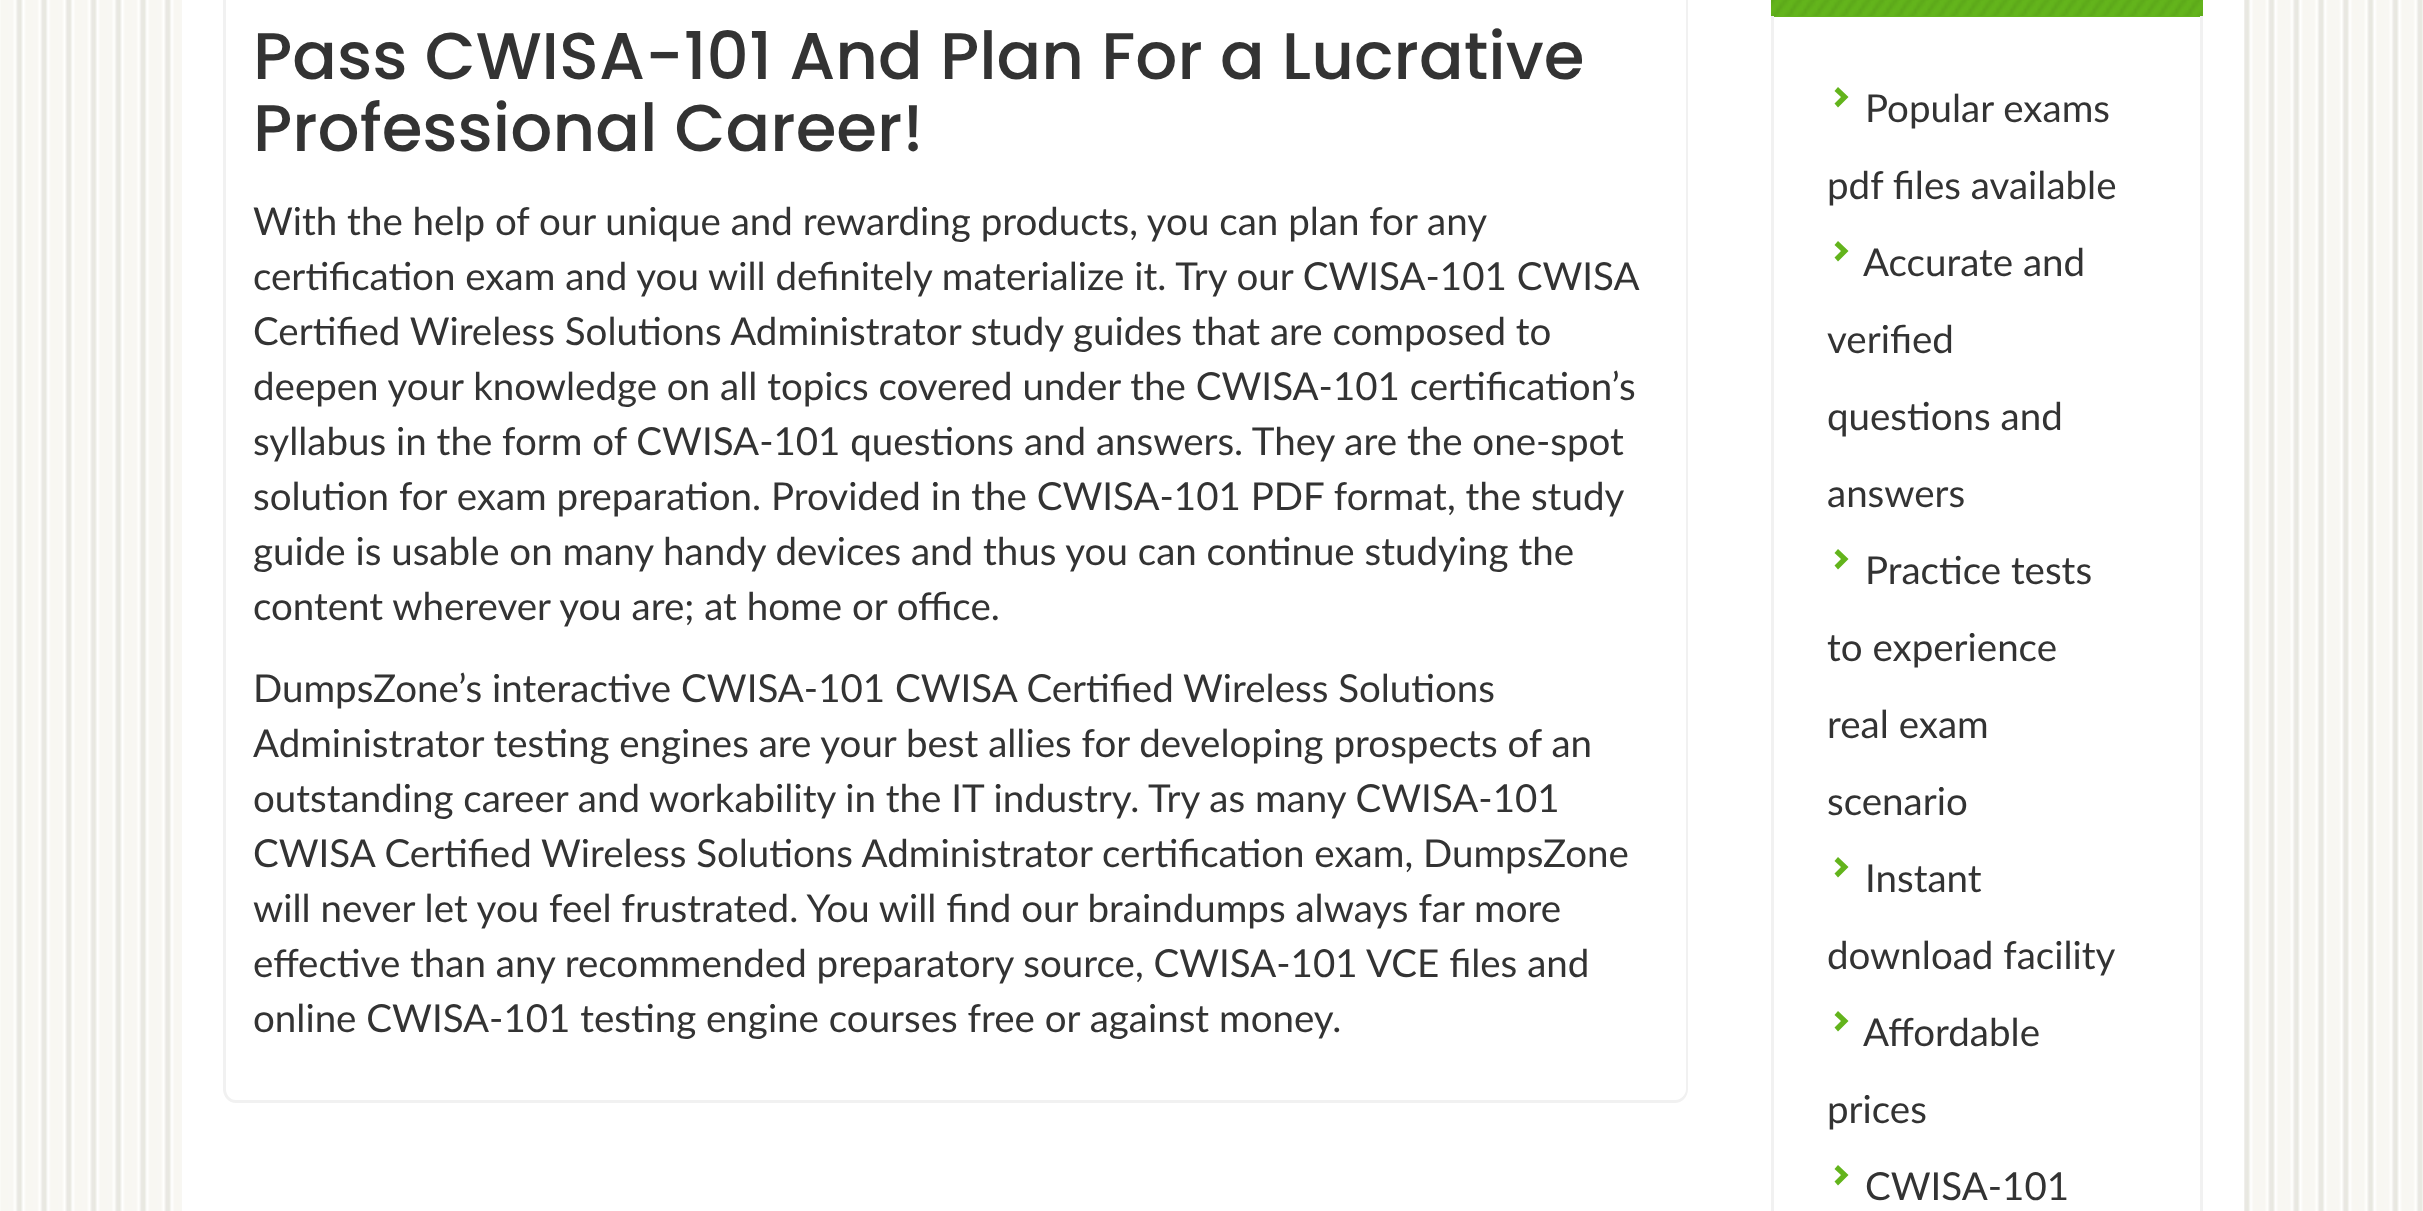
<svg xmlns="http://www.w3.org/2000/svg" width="2423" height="1211">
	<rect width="100%" height="100%" fill="#FFFFFF" />
	<image x="0" y="0" width="2423" height="1211" href="assets/img1.png" />
	<rect x="182" y="0" width="2062" height="1211" fill="#FFFFFF" />
	<path d="M223-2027H1688V1089C1688 1097 1682 1103 1675 1103H236C229 1103 223 1097 223 1089ZM226-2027H1686V1089C1686 1095 1681 1100 1675 1100H236C230 1100 226 1095 226 1089Z" fill="#F1F1F1" fill-rule="evenodd" />
	<g font-family="Poppins" font-size="66" font-weight="500" fill="#333333">
		<text x="253" y="79">Pass CWISA-101 And Plan For a Lucrative</text>
		<text x="253" y="151">Professional Career!</text>
	</g>
	<g font-family="Lato" font-size="38.5" fill="#333333">
		<text x="253" y="235">With the help of our unique and rewarding products, you can plan for any</text>
		<text x="253" y="290">certification exam and you will definitely materialize it. Try our CWISA-101 CWISA</text>
		<text x="253" y="345">Certified Wireless Solutions Administrator study guides that are composed to</text>
		<text x="253" y="400">deepen your knowledge on all topics covered under the CWISA-101 certification’s</text>
		<text x="253" y="455">syllabus in the form of CWISA-101 questions and answers. They are the one-spot</text>
		<text x="253" y="510">solution for exam preparation. Provided in the CWISA-101 PDF format, the study</text>
		<text x="253" y="565">guide is usable on many handy devices and thus you can continue studying the</text>
		<text x="253" y="620">content wherever you are; at home or office.</text>
		<text x="253" y="702">DumpsZone’s interactive CWISA-101 CWISA Certified Wireless Solutions</text>
		<text x="253" y="757">Administrator testing engines are your best allies for developing prospects of an</text>
		<text x="253" y="812">outstanding career and workability in the IT industry. Try as many CWISA-101</text>
		<text x="253" y="867">CWISA Certified Wireless Solutions Administrator certification exam, DumpsZone</text>
		<text x="253" y="922">will never let you feel frustrated. You will find our braindumps always far more</text>
		<text x="253" y="977">effective than any recommended preparatory source, CWISA-101 VCE files and</text>
		<text x="253" y="1032">online CWISA-101 testing engine courses free or against money.</text>
	</g>
	<rect x="1771" y="0" width="432" height="17" fill="#63B41C" />
	<image x="1771" y="0" width="432" height="16" href="assets/img2.png" />
	<path d="M1771 16H2203V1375C2203 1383 2197 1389 2189 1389H1785C1777 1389 1771 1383 1771 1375ZM1774 16H2200V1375C2200 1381 2195 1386 2189 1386H1785C1779 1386 1774 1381 1774 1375Z" fill="#F1F1F1" fill-rule="evenodd" />
	<path d="M1848.5 97L1838 107.5L1834.5 103.5L1841 97L1834.5 91L1838 87Z" fill="#63B41C" />
	<g font-family="Lato" font-size="38.5" fill="#333333">
		<text x="1865" y="122">Popular exams</text>
		<text x="1827" y="199">pdf files available</text>
	</g>
	<path d="M1848.5 251L1838 261.5L1834.5 257.5L1841 251L1834.5 245L1838 241Z" fill="#63B41C" />
	<g font-family="Lato" font-size="38.5" fill="#333333">
		<text x="1863" y="276">Accurate and</text>
		<text x="1827" y="353">verified</text>
		<text x="1827" y="430">questions and</text>
		<text x="1827" y="507">answers</text>
	</g>
	<path d="M1848.5 559L1838 569.5L1834.5 565.5L1841 559L1834.5 553L1838 549Z" fill="#63B41C" />
	<g font-family="Lato" font-size="38.5" fill="#333333">
		<text x="1865" y="584">Practice tests</text>
		<text x="1827" y="661">to experience</text>
		<text x="1827" y="738">real exam</text>
		<text x="1827" y="815">scenario</text>
	</g>
	<path d="M1848.5 867L1838 877.5L1834.5 873.5L1841 867L1834.5 861L1838 857Z" fill="#63B41C" />
	<g font-family="Lato" font-size="38.5" fill="#333333">
		<text x="1865" y="892">Instant</text>
		<text x="1827" y="969">download facility</text>
	</g>
	<path d="M1848.5 1021L1838 1031.5L1834.5 1027.5L1841 1021L1834.5 1015L1838 1011Z" fill="#63B41C" />
	<g font-family="Lato" font-size="38.5" fill="#333333">
		<text x="1863" y="1046">Affordable</text>
		<text x="1827" y="1123">prices</text>
	</g>
	<path d="M1848.5 1175L1838 1185.5L1834.5 1181.5L1841 1175L1834.5 1169L1838 1165Z" fill="#63B41C" />
	<text x="1865" y="1200" font-family="Lato" font-size="38.5" fill="#333333">CWISA-101</text>
</svg>
